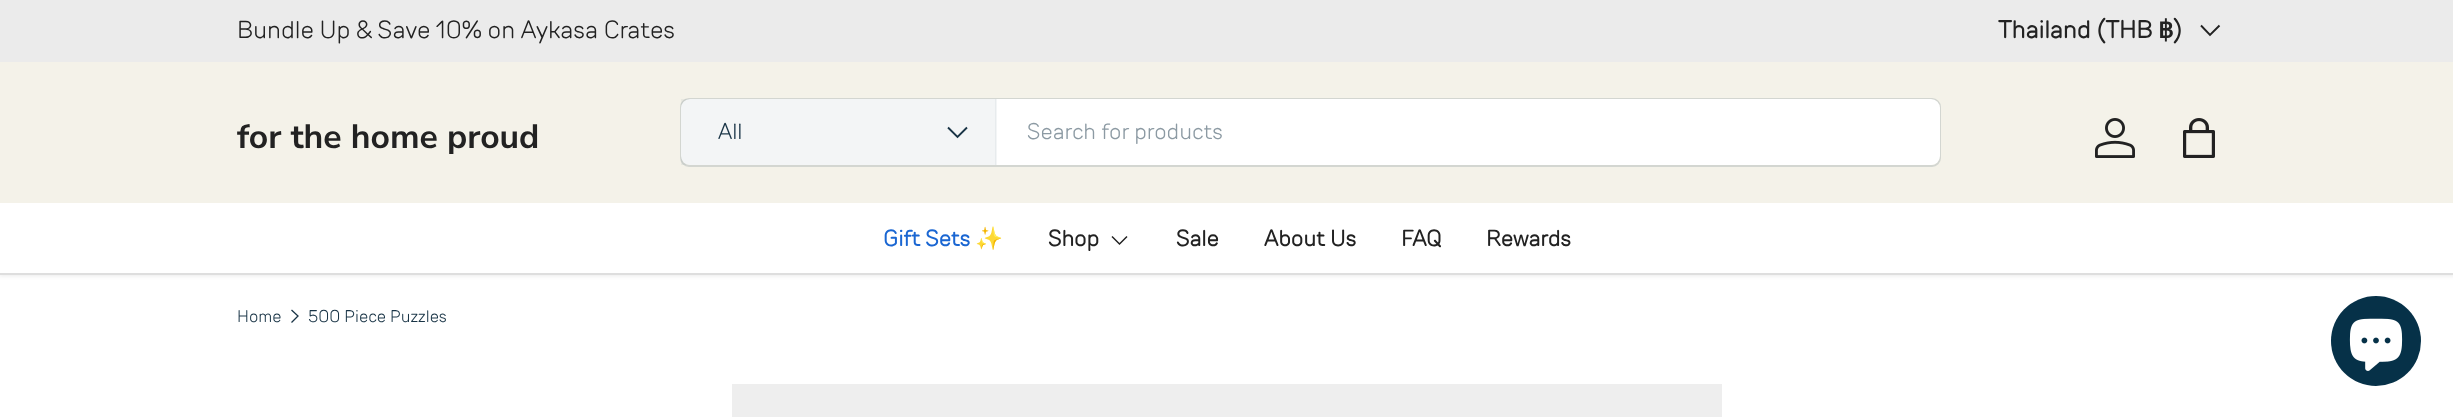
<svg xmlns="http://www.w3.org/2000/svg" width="2453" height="417">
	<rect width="100%" height="100%" fill="#FFFFFF" />
	<rect x="-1" y="60" width="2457" height="216" fill="#000000" fill-opacity="0.08" filter="blur(2px)" />
	<rect x="0" y="0" width="2453" height="62" fill="#EBEBEB" />
	<text x="237" y="38" font-family="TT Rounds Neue" font-size="24.75" font-weight="300" fill="#222222">Bundle Up &amp; Save 10% on Aykasa Crates</text>
	<text x="1998" y="38" font-family="TT Rounds Neue" font-size="24.75" font-weight="700" fill="#222222">Thailand (THB</text>
	<text x="2158" y="38" font-family="DejaVu Sans" font-size="24.75" font-weight="700" fill="#222222">฿</text>
	<text x="2173" y="38" font-family="TT Rounds Neue" font-size="24.75" font-weight="700" fill="#222222">)</text>
	<path d="M2219.5 25.5L2210 35L2201 25.5" fill="none" stroke="#222222" stroke-width="1.9" />
	<rect x="0" y="62" width="2453" height="141" fill="#F4F2E9" />
	<text x="237" y="148" font-family="Nunito Sans" font-size="33.75" font-weight="700" fill="#222222">for the home proud</text>
	<rect x="681" y="99" width="1259" height="67" rx="8" fill="none" stroke="#D3D6D1" stroke-width="2" />
	<rect x="681" y="99" width="1259" height="66" rx="9" fill="#FFFFFF" />
	<rect x="681" y="99" width="315" height="66" fill="#193446" fill-opacity="0.05" />
	<rect x="995" y="99" width="2" height="66" fill="#193446" fill-opacity="0.05" />
	<text x="718" y="139" font-family="TT Rounds Neue" font-size="22.5" font-weight="300" fill="#193446">All</text>
	<path d="M967 127.5L957.5 137L948 127.5" fill="none" stroke="#193446" stroke-width="1.9" />
	<text x="1027" y="139" font-family="TT Rounds Neue" font-size="22.5" font-weight="300" fill="#8C9AA3">Search for products</text>
	<image x="2095" y="118" width="40" height="40" href="assets/img1.png" />
	<image x="2183" y="118" width="32" height="40" href="assets/img2.png" />
	<rect x="0" y="203" width="2453" height="70" fill="#FFFFFF" />
	<text x="883" y="246" font-family="TT Rounds Neue" font-size="22.5" font-weight="700" fill="#1A66D2">Gift Sets</text>
	<text x="975" y="246" font-family="Noto Color Emoji" font-size="22.5" font-weight="700" fill="#1A66D2">✨</text>
	<text x="1048" y="246" font-family="TT Rounds Neue" font-size="22.5" font-weight="700" fill="#222222">Shop</text>
	<path d="M1127 236.5L1119.5 244L1112 236.5" fill="none" stroke="#222222" stroke-width="1.5" />
	<g font-family="TT Rounds Neue" font-size="22.5" font-weight="700" fill="#222222">
		<text x="1176" y="246">Sale</text>
		<text x="1264" y="246">About Us</text>
		<text x="1401" y="246">FAQ</text>
		<text x="1486" y="246">Rewards</text>
	</g>
	<rect x="0" y="273" width="2453" height="2" fill="#DEDEDE" />
	<text x="237" y="322" font-family="TT Rounds Neue" font-size="17" font-weight="300" fill="#193446">Home</text>
	<path d="M291.5 310L298 316L291.5 322.5" fill="none" stroke="#193446" stroke-width="1.3" />
	<text x="308" y="322" font-family="TT Rounds Neue" font-size="17" font-weight="300" fill="#193446">500 Piece Puzzles</text>
	<rect x="732" y="384" width="990" height="33" fill="#EEEEEE" />
	<circle cx="2376" cy="341" r="45" fill="#063148" />
	<image x="2349" y="318" width="54" height="53" href="assets/img3.png" />
</svg>
